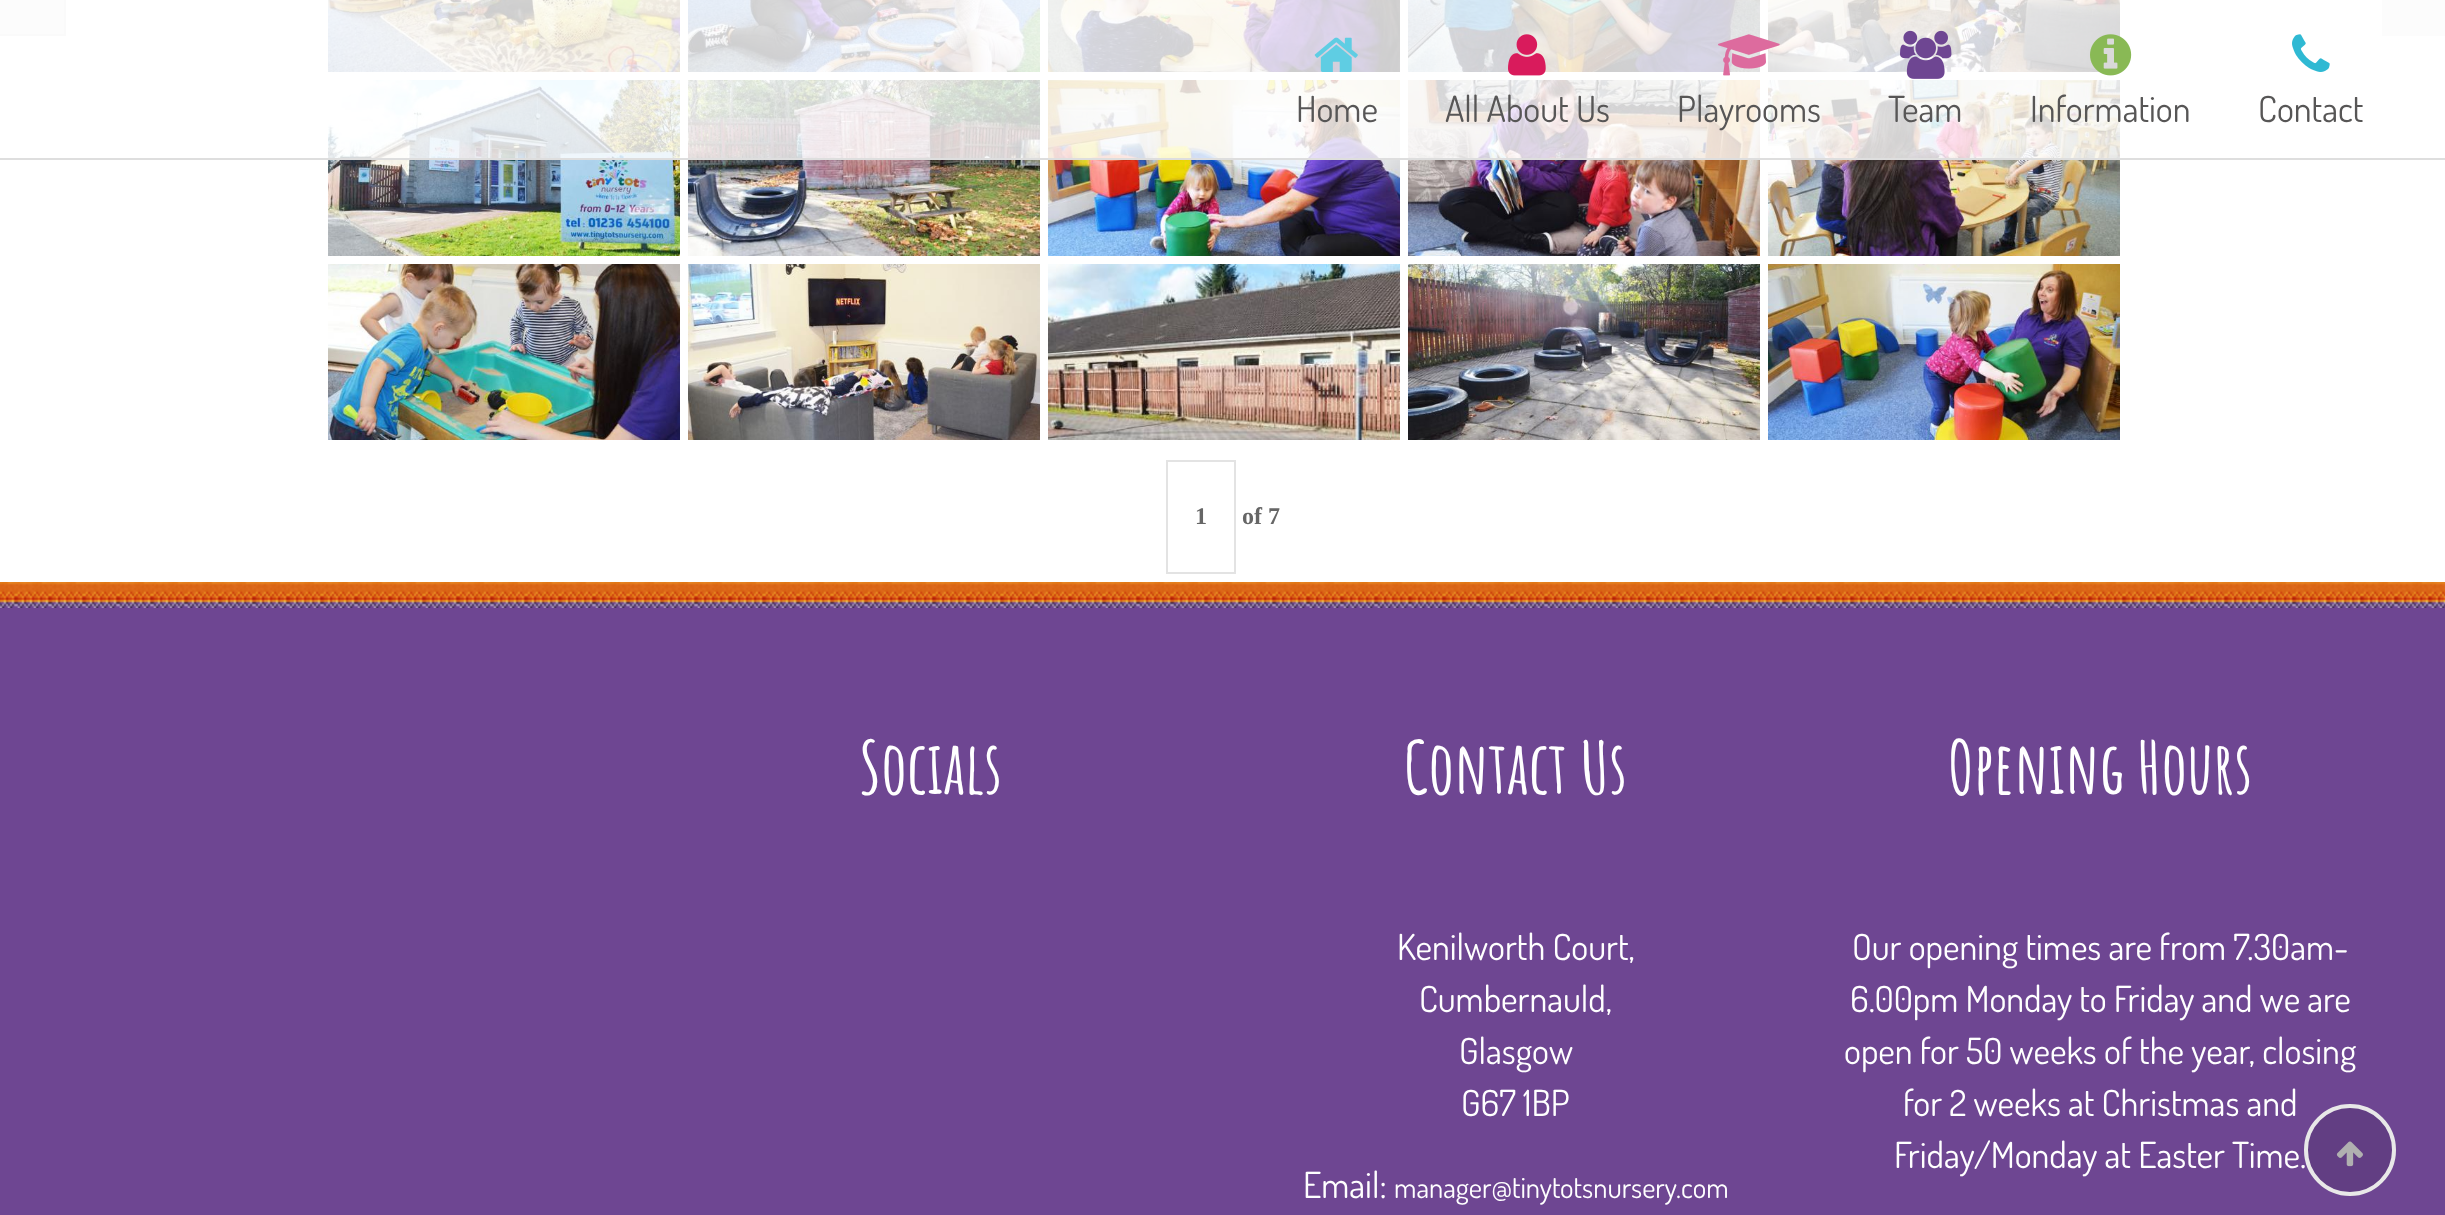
<svg xmlns="http://www.w3.org/2000/svg" width="2445" height="1215">
	<rect width="100%" height="100%" fill="#FFFFFF" />
	<image x="328" y="0" width="352" height="72" href="assets/img7.png" />
	<image x="688" y="0" width="352" height="72" href="assets/img8.png" />
	<image x="1048" y="0" width="352" height="72" href="assets/img9.png" />
	<image x="1408" y="0" width="352" height="72" href="assets/img10.png" />
	<image x="1768" y="0" width="352" height="72" href="assets/img11.png" />
	<image x="328" y="80" width="352" height="176" href="assets/img12.png" />
	<image x="688" y="80" width="352" height="176" href="assets/img13.png" />
	<image x="1048" y="80" width="352" height="176" href="assets/img14.png" />
	<image x="1408" y="80" width="352" height="176" href="assets/img15.png" />
	<image x="1768" y="80" width="352" height="176" href="assets/img16.png" />
	<rect x="-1" y="-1" width="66" height="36" fill="#EEEEEE" stroke="#E3E3E3" stroke-width="2" />
	<rect x="2382" y="0" width="63" height="36" fill="#EEEEEE" />
	<rect x="0" y="0" width="2445" height="158" fill="#FFFFFF" fill-opacity="0.8" />
	<rect x="0" y="158" width="2445" height="2" fill="#DEDEDE" />
	<image x="1314" y="37" width="44" height="35" href="assets/img1.png" />
	<text x="1296" y="122" font-family="Dosis" font-size="36" fill="#575656">Home</text>
	<image x="1508" y="34" width="38" height="42" href="assets/img2.png" />
	<text x="1445" y="122" font-family="Dosis" font-size="36" fill="#575656">All About Us</text>
	<image x="1718" y="34" width="62" height="42" href="assets/img3.png" />
	<text x="1677" y="122" font-family="Dosis" font-size="36" fill="#575656">Playrooms</text>
	<image x="1900" y="30" width="52" height="49" href="assets/img4.png" />
	<text x="1888" y="122" font-family="Dosis" font-size="36" fill="#575656">Team</text>
	<image x="2090" y="34" width="42" height="42" href="assets/img5.png" />
	<text x="2030" y="122" font-family="Dosis" font-size="36" fill="#575656">Information</text>
	<image x="2292" y="34" width="38" height="38" href="assets/img6.png" />
	<text x="2258" y="122" font-family="Dosis" font-size="36" fill="#575656">Contact</text>
	<image x="328" y="264" width="352" height="176" href="assets/img17.png" />
	<image x="688" y="264" width="352" height="176" href="assets/img18.png" />
	<image x="1048" y="264" width="352" height="176" href="assets/img19.png" />
	<image x="1408" y="264" width="352" height="176" href="assets/img20.png" />
	<image x="1768" y="264" width="352" height="176" href="assets/img21.png" />
	<rect x="1167" y="461" width="68" height="112" fill="none" stroke="#E3E3E3" stroke-width="2" />
	<g font-family="Liberation Serif" font-size="24" font-weight="700" fill="#666666">
		<text x="1195" y="524">1</text>
		<text x="1242" y="524">of 7</text>
	</g>
	<rect x="0" y="601" width="2445" height="614" fill="#6E4692" />
	<image x="0" y="582" width="2445" height="26" href="assets/img22.png" />
	<g font-family="Amatic SC" font-size="72" font-weight="700" fill="#FFFFFF">
		<text x="859" y="794">Socials</text>
		<text x="1404" y="794">Contact Us</text>
	</g>
	<g font-family="Dosis" font-size="36" fill="#FFFFFF">
		<text x="1397" y="960">Kenilworth Court,</text>
		<text x="1419" y="1012">Cumbernauld,</text>
		<text x="1459" y="1064">Glasgow</text>
		<text x="1461" y="1116">G67 1BP</text>
		<text x="1303" y="1198">Email:</text>
	</g>
	<text x="1394" y="1198" font-family="Dosis" font-size="28.75" fill="#FFFFFF">manager@tinytotsnursery.com</text>
	<text x="1948" y="794" font-family="Amatic SC" font-size="72" font-weight="700" fill="#FFFFFF">Opening Hours</text>
	<g font-family="Dosis" font-size="36" fill="#FFFFFF">
		<text x="1852" y="960">Our opening times are from 7.30am-</text>
		<text x="1850" y="1012">6.00pm Monday to Friday and we are</text>
		<text x="1844" y="1064">open for 50 weeks of the year, closing</text>
		<text x="1903" y="1116">for 2 weeks at Christmas and</text>
		<text x="1894" y="1168">Friday/Monday at Easter Time.</text>
	</g>
	<circle cx="2350" cy="1150" r="44" fill="none" stroke="#E8E8E8" stroke-width="4" />
	<circle cx="2350" cy="1150" r="42" fill="#000000" fill-opacity="0.1" />
	<image x="2336" y="1141" width="27" height="26" href="assets/img23.png" />
</svg>
